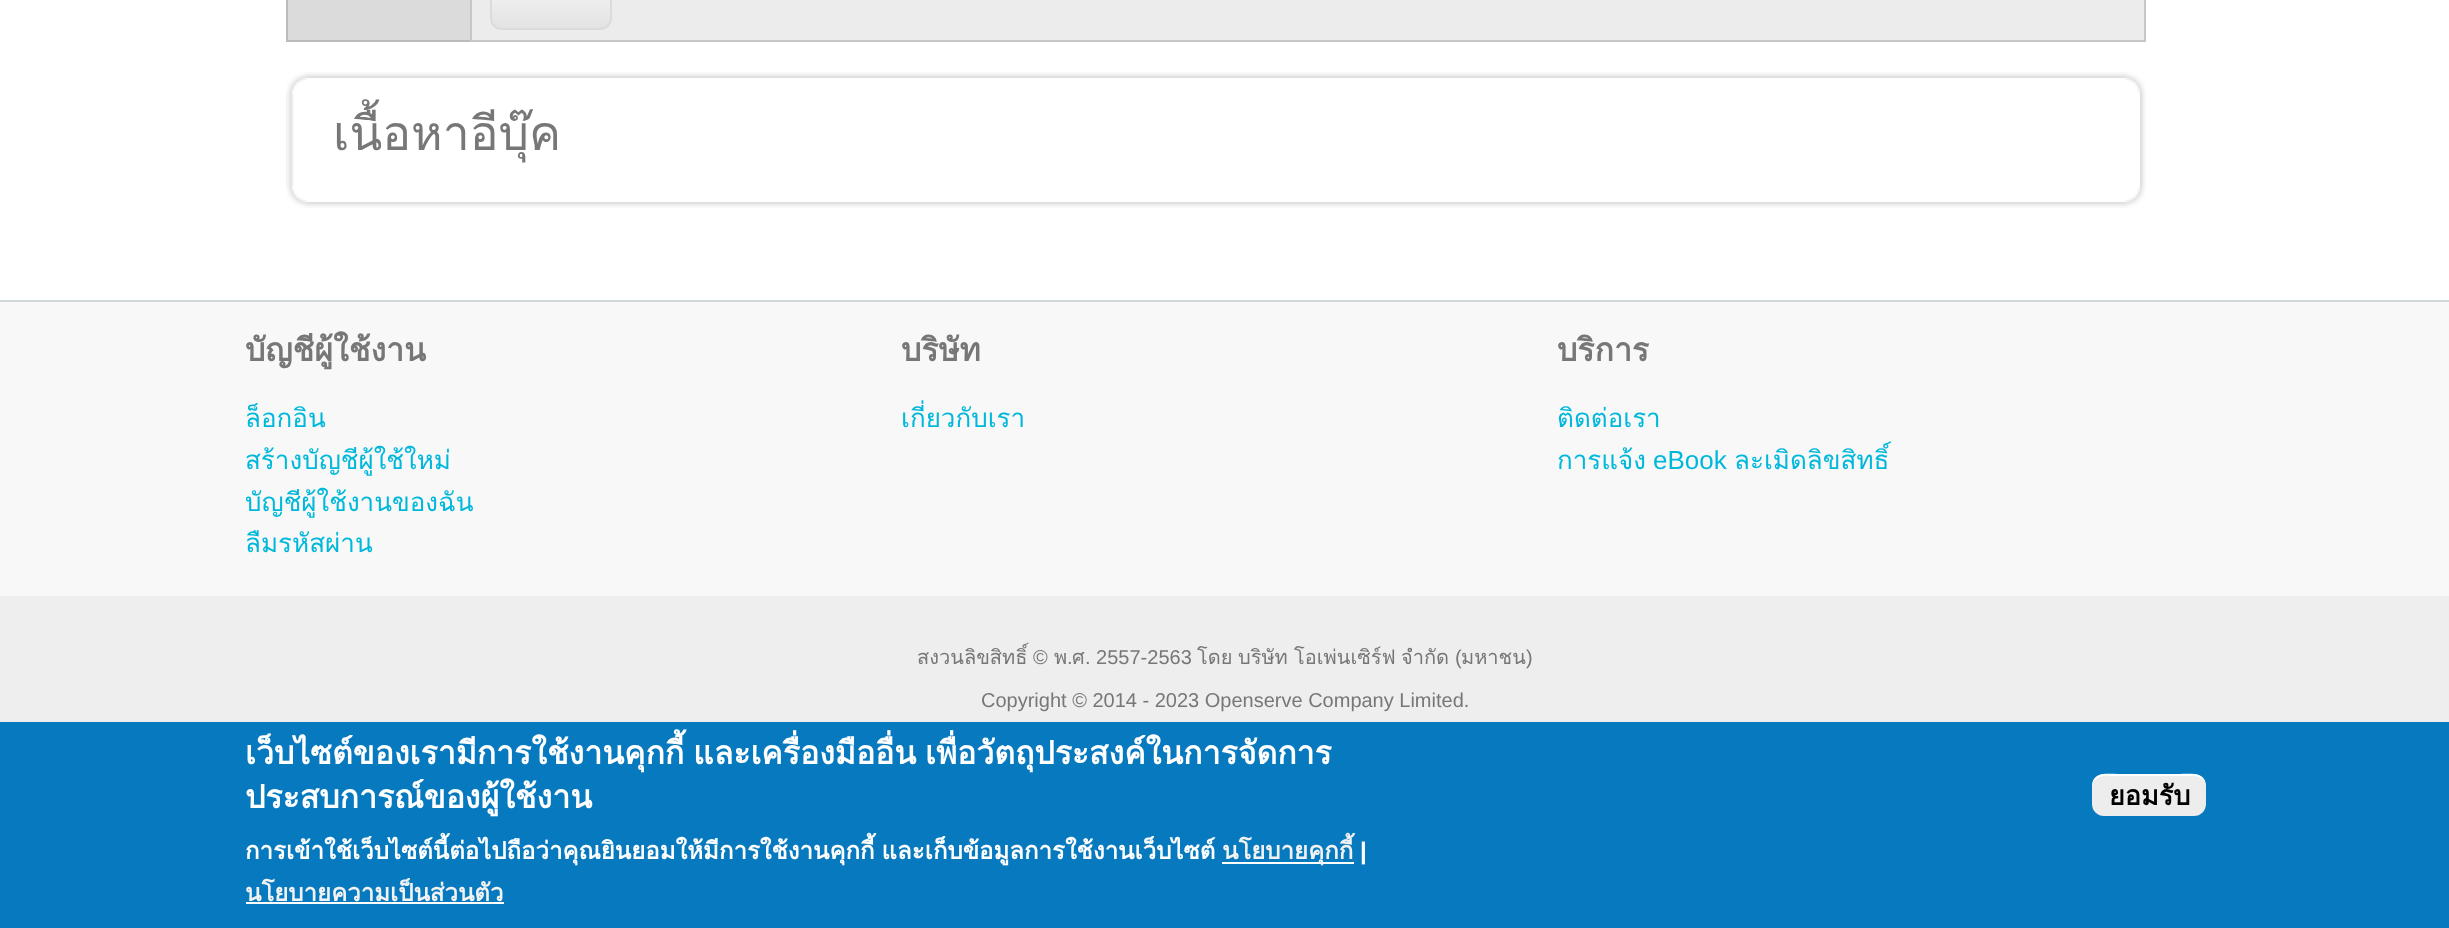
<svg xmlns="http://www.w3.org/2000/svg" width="2449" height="928">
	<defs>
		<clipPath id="clip1"><rect x="490" y="-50" width="122" height="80" rx="12" /></clipPath>
		<linearGradient id="g1" gradientUnits="userSpaceOnUse" x1="551" y1="-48" x2="551" y2="28"><stop offset="0" stop-color="#FFFFFF" /><stop offset="1" stop-color="#E3E3E3" /></linearGradient>
	</defs>
	<rect width="100%" height="100%" fill="#FFFFFF" />
	<rect x="472" y="0" width="1672" height="40" fill="#ECECEC" />
	<rect x="286" y="40" width="184" height="2" fill="#BBBBBB" />
	<rect x="286" y="0" width="2" height="42" fill="#BBBBBB" />
	<rect x="288" y="0" width="182" height="40" fill="#DBDBDB" />
	<rect x="2144" y="0" width="2" height="42" fill="#C8C7C7" />
	<rect x="470" y="40" width="1676" height="2" fill="#C8C7C7" />
	<rect x="470" y="0" width="2" height="42" fill="#C8C7C7" />
	<g clip-path="url(#clip1)">
		<rect x="490" y="0" width="122" height="28" fill="url(#g1)" />
	</g>
	<rect x="491" y="-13" width="120" height="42" rx="11" fill="none" stroke="#DBDBDB" stroke-width="2" />
	<image x="308" y="72" width="1816" height="6" href="assets/img1.png" />
	<image x="286" y="72" width="22" height="22" href="assets/img2.png" />
	<image x="2124" y="72" width="22" height="22" href="assets/img3.png" />
	<image x="286" y="94" width="8" height="92" href="assets/img4.png" />
	<image x="2140" y="94" width="6" height="92" href="assets/img5.png" />
	<text x="333" y="150" font-family="Loma" font-size="48" fill="#777777">เนื้อหาอีบุ๊ค</text>
	<image x="308" y="202" width="1816" height="6" href="assets/img6.png" />
	<image x="286" y="186" width="22" height="22" href="assets/img7.png" />
	<image x="2124" y="186" width="22" height="22" href="assets/img8.png" />
	<rect x="0" y="302" width="2449" height="294" fill="#F8F8F8" />
	<rect x="0" y="300" width="2449" height="2" fill="#CFD7DB" />
	<text x="245" y="361" font-family="Loma" font-size="32" font-weight="700" fill="#777777">บัญชีผู้ใช้งาน</text>
	<g font-family="Loma" font-size="26" fill="#00B8DB">
		<text x="245" y="427">ล็อกอิน</text>
		<text x="245" y="469">สร้างบัญชีผู้ใช้ใหม่</text>
		<text x="245" y="511">บัญชีผู้ใช้งานของฉัน</text>
		<text x="245" y="552">ลืมรหัสผ่าน</text>
	</g>
	<text x="901" y="361" font-family="Loma" font-size="32" font-weight="700" fill="#777777">บริษัท</text>
	<text x="901" y="427" font-family="Loma" font-size="26" fill="#00B8DB">เกี่ยวกับเรา</text>
	<text x="1557" y="361" font-family="Loma" font-size="32" font-weight="700" fill="#777777">บริการ</text>
	<g font-family="Loma" font-size="26" fill="#00B8DB">
		<text x="1557" y="427">ติดต่อเรา</text>
		<text x="1557" y="469">การแจ้ง</text>
	</g>
	<text x="1653" y="469" font-family="Liberation Sans" font-size="26" fill="#00B8DB">eBook</text>
	<text x="1734" y="469" font-family="Loma" font-size="26" fill="#00B8DB">ละเมิดลิขสิทธิ์</text>
	<rect x="0" y="596" width="2449" height="126" fill="#EEEEEE" />
	<text x="917" y="664" font-family="Loma" font-size="20" fill="#777777">สงวนลิขสิทธิ์</text>
	<text x="1033" y="664" font-family="Liberation Sans" font-size="20" fill="#777777">©</text>
	<text x="1054" y="664" font-family="Loma" font-size="20" fill="#777777">พ</text>
	<text x="1067" y="664" font-family="Liberation Sans" font-size="20" fill="#777777">.</text>
	<text x="1072" y="664" font-family="Loma" font-size="20" fill="#777777">ศ</text>
	<text x="1085" y="664" font-family="Liberation Sans" font-size="20" fill="#777777">. 2557-2563</text>
	<g font-family="Loma" font-size="20" fill="#777777">
		<text x="1197" y="664">โดย</text>
		<text x="1238" y="664">บริษัท</text>
		<text x="1294" y="664">โอเพ่นเซิร์ฟ</text>
		<text x="1401" y="664">จำกัด</text>
	</g>
	<text x="1455" y="664" font-family="Liberation Sans" font-size="20" fill="#777777">(</text>
	<text x="1461" y="664" font-family="Loma" font-size="20" fill="#777777">มหาชน</text>
	<g font-family="Liberation Sans" font-size="20" fill="#777777">
		<text x="1526" y="664">)</text>
		<text x="981" y="707">Copyright © 2014 - 2023 Openserve Company Limited.</text>
	</g>
	<rect x="0" y="722" width="2449" height="206" fill="#0779BF" />
	<g font-family="Loma" font-size="32" font-weight="700" fill="#FFFFFF">
		<text x="245" y="764" word-spacing="-2">เว็บไซต์ของเรามีการใช้งานคุกกี้ และเครื่องมืออื่น เพื่อวัตถุประสงค์ในการจัดการ</text>
		<text x="245" y="808">ประสบการณ์ของผู้ใช้งาน</text>
	</g>
	<text x="245" y="859" word-spacing="-1" font-family="Loma" font-size="24" font-weight="700" fill="#FFFFFF">การเข้าใช้เว็บไซต์นี้ต่อไปถือว่าคุณยินยอมให้มีการใช้งานคุกกี้ และเก็บข้อมูลการใช้งานเว็บไซต์</text>
	<rect x="1222" y="862" width="132" height="2" fill="#FFFFFF" />
	<text x="1222" y="859" font-family="Loma" font-size="24" font-weight="700" fill="#F2F2F2">นโยบายคุกกี้</text>
	<text x="1360" y="859" font-family="Liberation Sans" font-size="24" font-weight="700" fill="#FFFFFF">|</text>
	<text x="245" y="901" font-family="Loma" font-size="24" font-weight="700" fill="#F2F2F2">นโยบายความเป็นส่วนตัว</text>
	<rect x="246" y="902" width="258" height="2" fill="#FFFFFF" />
	<rect x="2092" y="774" width="114" height="42" rx="12" fill="#EDEDED" />
	<path d="M2104 776H2194C2201 776 2206 781 2206 788C2206 771 2192 774 2179 774H2119C2106 774 2092 771 2092 788C2092 781 2097 776 2104 776Z" fill="#FFFFFF" />
	<text x="2109" y="805" font-family="Loma" font-size="27" font-weight="700" fill="#000000">ยอมรับ</text>
</svg>
